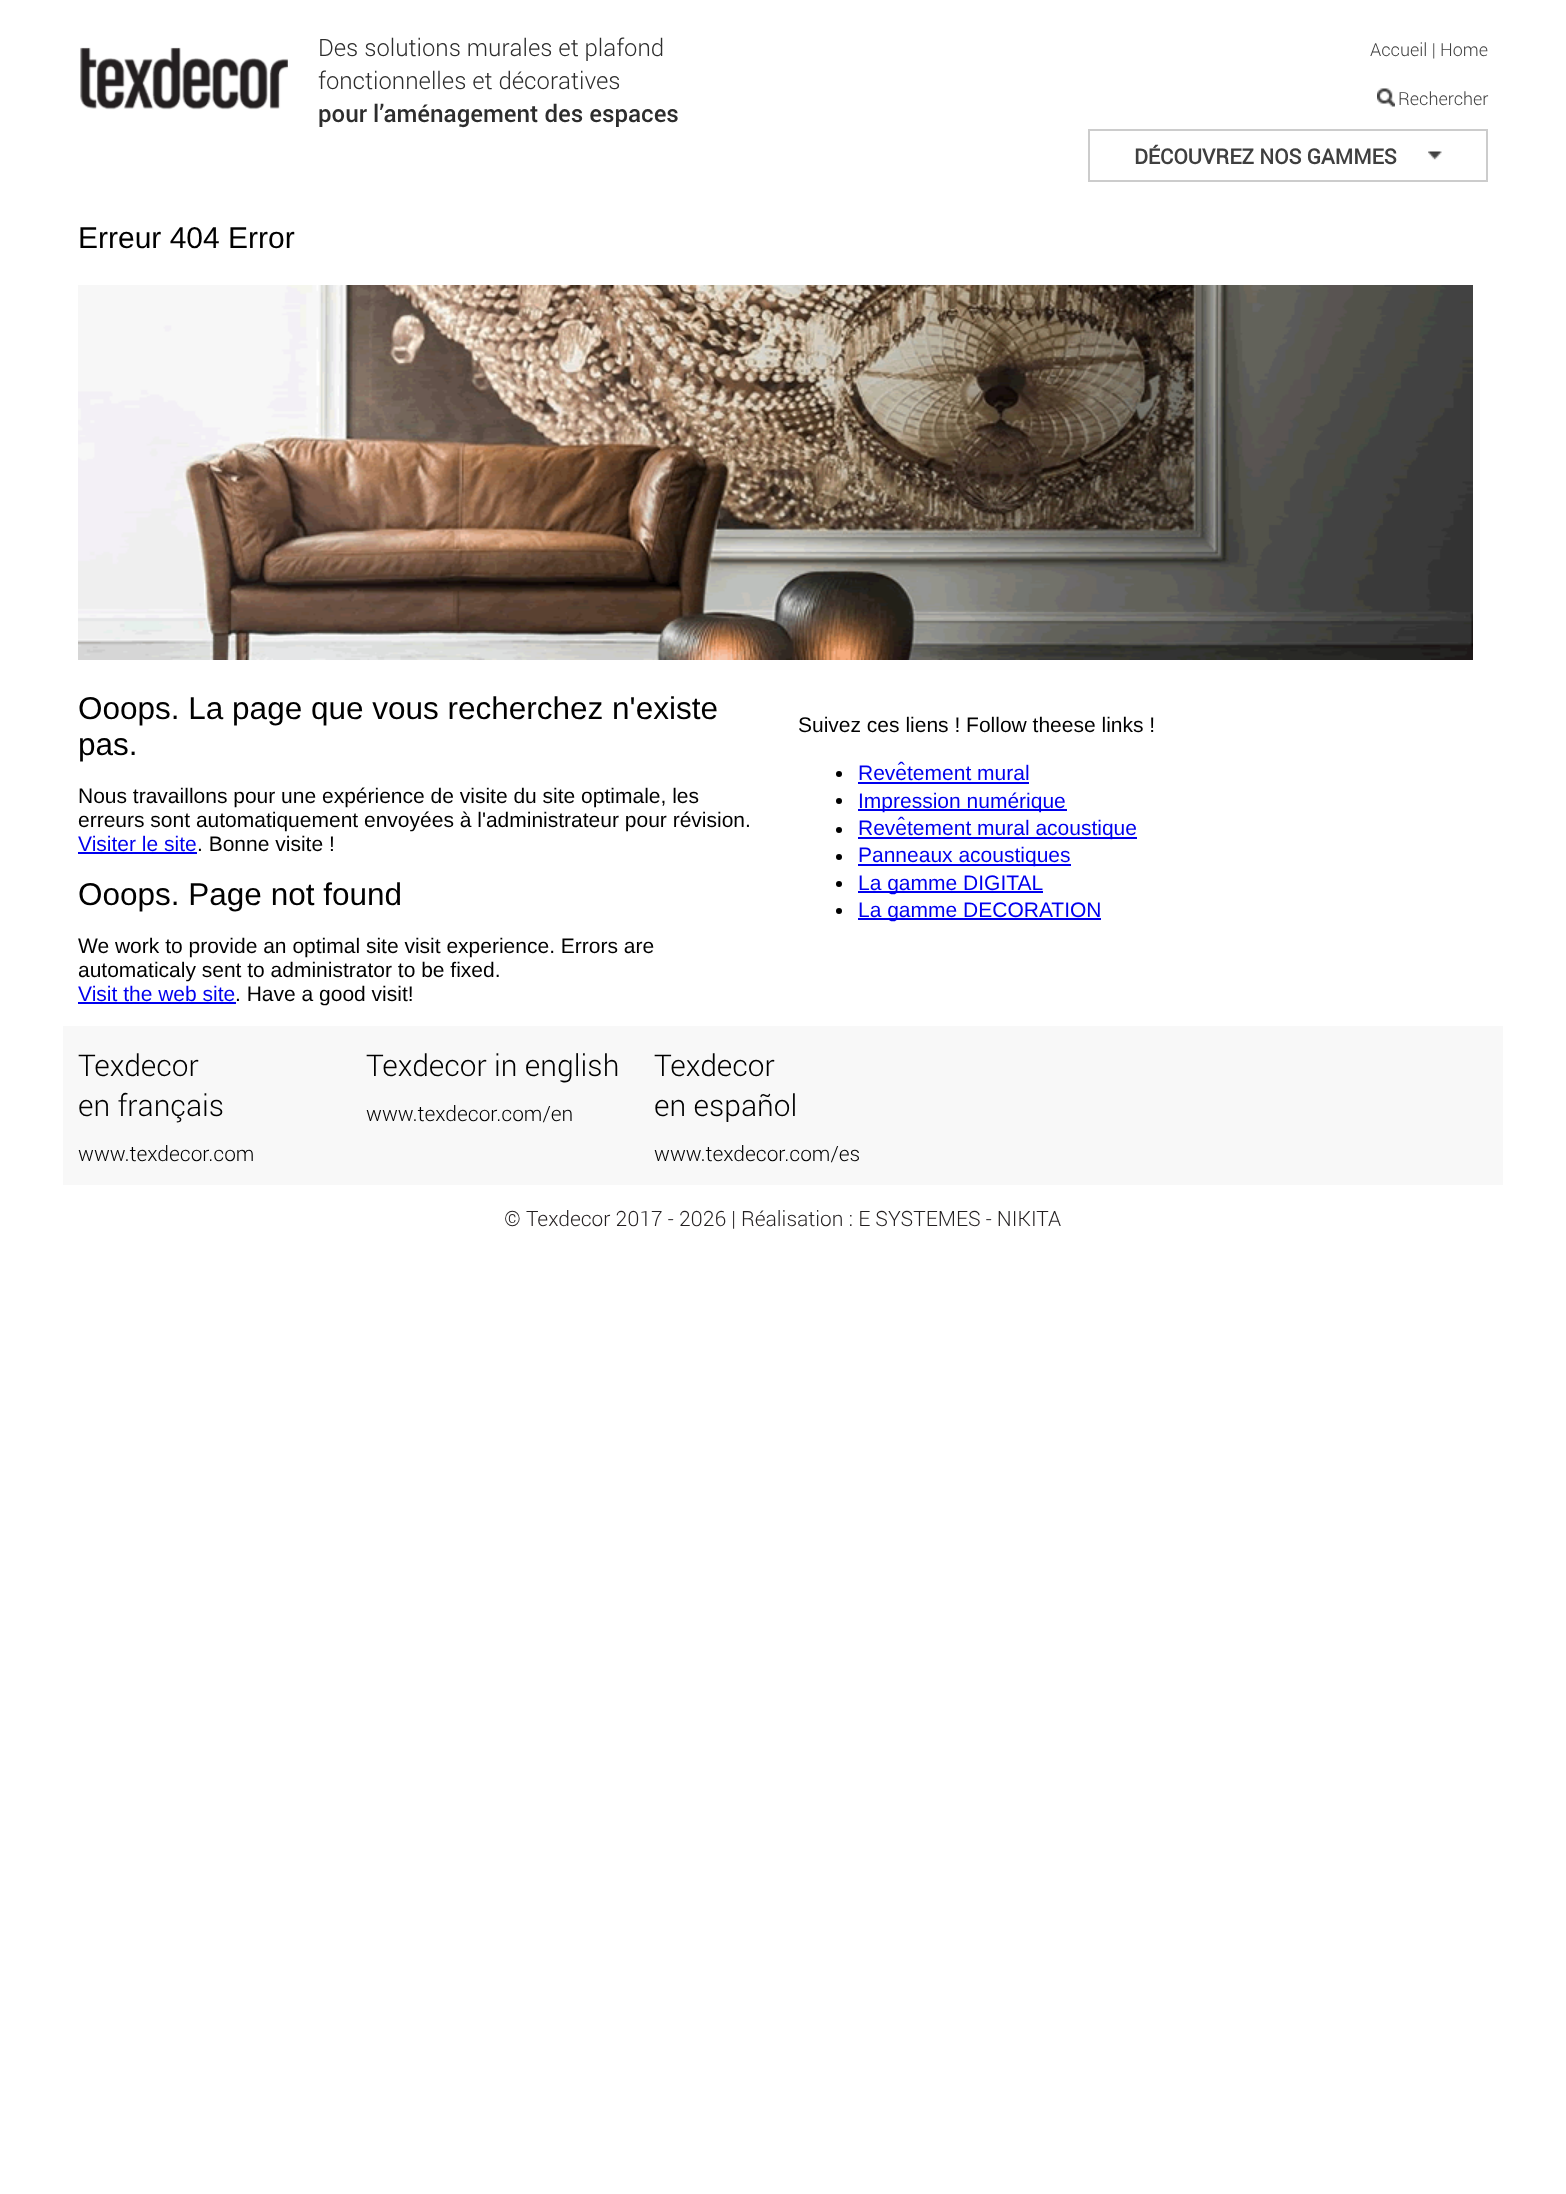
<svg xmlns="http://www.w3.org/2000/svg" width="1566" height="2194">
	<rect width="100%" height="100%" fill="#FFFFFF" />
	<image x="80" y="47" width="208" height="63" href="assets/img1.png" />
	<g font-family="Roboto" font-size="24" font-weight="300" fill="#2D2D2D">
		<text x="318" y="56">Des solutions murales et plafond</text>
		<text x="318" y="89">fonctionnelles et décoratives</text>
	</g>
	<text x="318" y="122" font-family="Roboto" font-size="24" font-weight="500" fill="#2D2D2D">pour l’aménagement des espaces</text>
	<text x="1370" y="56" font-family="Roboto" font-size="18" font-weight="300" fill="#3F3F3F">Accueil | Home</text>
	<image x="1377" y="88" width="18" height="19" href="assets/img2.png" />
	<text x="1398" y="105" font-family="Roboto" font-size="18" font-weight="300" fill="#3F3F3F">Rechercher</text>
	<rect x="1089" y="130" width="398" height="51" fill="none" stroke="#CCCCCC" stroke-width="2" />
	<text x="1134" y="164" font-family="roboto" font-size="21" font-weight="700" fill="#3F3F3F">DÉCOUVREZ NOS GAMMES</text>
	<image x="1428" y="151" width="14" height="9" href="assets/img3.png" />
	<text x="78" y="248" font-family="Liberation Sans" font-size="30" fill="#000000">Erreur 404 Error</text>
	<image x="78" y="285" width="1395" height="375" href="assets/img4.png" />
	<g font-family="Liberation Sans" font-size="31.5" fill="#000000">
		<text x="78" y="719">Ooops. La page que vous recherchez n'existe</text>
		<text x="78" y="755">pas.</text>
	</g>
	<g font-family="Liberation Sans" font-size="21" fill="#000000">
		<text x="78" y="803">Nous travaillons pour une expérience de visite du site optimale, les</text>
		<text x="78" y="827">erreurs sont automatiquement envoyées à l'administrateur pour révision.</text>
	</g>
	<text x="78" y="851" font-family="Liberation Sans" font-size="21" fill="#0000EE">Visiter le site</text>
	<rect x="78" y="852" width="119" height="2" fill="#0000EE" />
	<text x="197" y="851" font-family="Liberation Sans" font-size="21" fill="#000000">. Bonne visite !</text>
	<text x="78" y="905" font-family="Liberation Sans" font-size="31.5" fill="#000000">Ooops. Page not found</text>
	<g font-family="Liberation Sans" font-size="21" fill="#000000">
		<text x="78" y="953">We work to provide an optimal site visit experience. Errors are</text>
		<text x="78" y="977">automaticaly sent to administrator to be fixed.</text>
	</g>
	<text x="78" y="1001" font-family="Liberation Sans" font-size="21" fill="#0000EE">Visit the web site</text>
	<rect x="78" y="1002" width="158" height="2" fill="#0000EE" />
	<g font-family="Liberation Sans" font-size="21" fill="#000000">
		<text x="235" y="1001">. Have a good visit!</text>
		<text x="798" y="732">Suivez ces liens ! Follow theese links !</text>
	</g>
	<circle cx="839" cy="774" r="3" fill="#000000" />
	<text x="858" y="780" font-family="Liberation Sans" font-size="21" fill="#0000EE">Revêtement mural</text>
	<rect x="858" y="782" width="171" height="2" fill="#0000EE" />
	<circle cx="839" cy="801" r="3" fill="#000000" />
	<rect x="858" y="809" width="209" height="2" fill="#0000EE" />
	<text x="858" y="808" font-family="Liberation Sans" font-size="21" fill="#0000EE">Impression numérique</text>
	<circle cx="839" cy="830" r="3" fill="#000000" />
	<rect x="858" y="837" width="279" height="2" fill="#0000EE" />
	<text x="858" y="835" font-family="Liberation Sans" font-size="21" fill="#0000EE">Revêtement mural acoustique</text>
	<circle cx="839" cy="857" r="3" fill="#000000" />
	<rect x="858" y="864" width="213" height="2" fill="#0000EE" />
	<text x="858" y="862" font-family="Liberation Sans" font-size="21" fill="#0000EE">Panneaux acoustiques</text>
	<circle cx="839" cy="884" r="3" fill="#000000" />
	<rect x="858" y="891" width="185" height="2" fill="#0000EE" />
	<text x="858" y="890" font-family="Liberation Sans" font-size="21" fill="#0000EE">La gamme DIGITAL</text>
	<circle cx="839" cy="911" r="3" fill="#000000" />
	<rect x="858" y="918" width="243" height="2" fill="#0000EE" />
	<text x="858" y="917" font-family="Liberation Sans" font-size="21" fill="#0000EE">La gamme DECORATION</text>
	<rect x="63" y="1026" width="1440" height="159" fill="#F8F8F8" />
	<g font-family="Roboto" font-size="30" font-weight="300" fill="#000000">
		<text x="78" y="1076">Texdecor</text>
		<text x="78" y="1116">en français</text>
	</g>
	<text x="78" y="1161" font-family="Roboto" font-size="21" font-weight="300" fill="#000000">www.texdecor.com</text>
	<text x="366" y="1076" font-family="Roboto" font-size="30" font-weight="300" fill="#000000">Texdecor in english</text>
	<text x="366" y="1121" font-family="Roboto" font-size="21" font-weight="300" fill="#000000">www.texdecor.com/en</text>
	<g font-family="Roboto" font-size="30" font-weight="300" fill="#000000">
		<text x="654" y="1076">Texdecor</text>
		<text x="654" y="1116">en español</text>
	</g>
	<text x="654" y="1161" font-family="Roboto" font-size="21" font-weight="300" fill="#000000">www.texdecor.com/es</text>
	<text x="504" y="1226" font-family="Roboto" font-size="21" font-weight="300" fill="#231F20">© Texdecor 2017 - 2026 | Réalisation : E SYSTEMES - NIKITA</text>
</svg>
